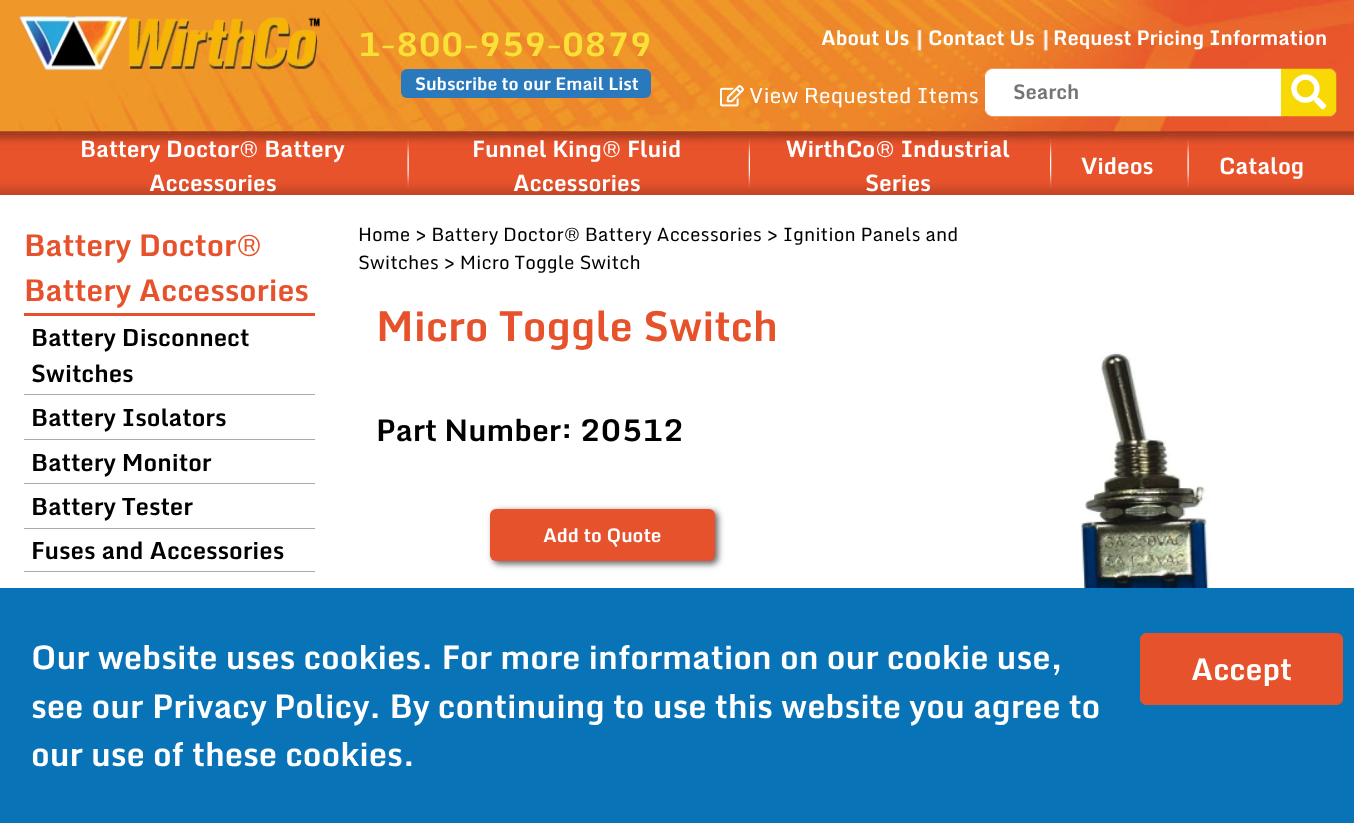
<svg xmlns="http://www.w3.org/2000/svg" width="1354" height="823">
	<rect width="100%" height="100%" fill="#FFFFFF" />
	<image x="0" y="0" width="1354" height="195" href="assets/img1.png" />
	<image x="18" y="16" width="302" height="55" href="assets/img2.png" />
	<text x="358" y="56" font-family="Monda" font-size="32.5" font-weight="700" fill="#FAE137">1-800-959-0879</text>
	<rect x="401" y="69" width="250" height="29" rx="6" fill="#2979BC" />
	<text x="415" y="90" font-family="Monda" font-size="17.5" font-weight="700" fill="#FFFFFF">Subscribe to our Email List</text>
	<text x="821" y="45" font-family="Monda" font-size="20" font-weight="700" fill="#FFFFFF">About Us</text>
	<image x="917" y="29" width="5" height="23" href="assets/img3.png" />
	<text x="928" y="45" font-family="Monda" font-size="20" font-weight="700" fill="#FFFFFF">Contact Us</text>
	<image x="1043" y="29" width="5" height="23" href="assets/img4.png" />
	<text x="1053" y="45" font-family="Monda" font-size="20" font-weight="700" fill="#FFFFFF">Request Pricing Information</text>
	<image x="720" y="85" width="24" height="22" href="assets/img5.png" />
	<text x="749" y="103" font-family="Monda" font-size="21.25" fill="#FFFFFF">View Requested Items</text>
	<image x="985" y="68" width="352" height="49" href="assets/img6.png" />
	<text x="1013" y="99" font-family="Monda" font-size="20" font-weight="700" fill="#757575">Search</text>
	<path d="M1281 69H1323C1330 69 1336 75 1336 82V103C1336 110 1330 116 1323 116H1281Z" fill="#F8D906" />
	<image x="1291" y="74" width="36" height="36" href="assets/img7.png" />
	<g font-family="Monda" font-size="22.5" font-weight="700" fill="#FFFFFF">
		<text x="80" y="157">Battery Doctor® Battery</text>
		<text x="149" y="191">Accessories</text>
	</g>
	<image x="407" y="139" width="2" height="49" href="assets/img8.png" />
	<g font-family="Monda" font-size="22.5" font-weight="700" fill="#FFFFFF">
		<text x="472" y="157">Funnel King® Fluid</text>
		<text x="513" y="191">Accessories</text>
	</g>
	<image x="748" y="139" width="2" height="50" href="assets/img9.png" />
	<g font-family="Monda" font-size="22.5" font-weight="700" fill="#FFFFFF">
		<text x="786" y="157">WirthCo® Industrial</text>
		<text x="865" y="191">Series</text>
	</g>
	<image x="1050" y="139" width="2" height="50" href="assets/img10.png" />
	<text x="1081" y="174" font-family="Monda" font-size="22.5" font-weight="700" fill="#FFFFFF">Videos</text>
	<image x="1187" y="139" width="2" height="49" href="assets/img11.png" />
	<text x="1219" y="174" font-family="Monda" font-size="22.5" font-weight="700" fill="#FFFFFF">Catalog</text>
	<rect x="24" y="313" width="291" height="3" fill="#E6522C" />
	<g font-family="Monda" font-size="30" font-weight="700" fill="#E6522C">
		<text x="24" y="256">Battery Doctor®</text>
		<text x="24" y="301">Battery Accessories</text>
	</g>
	<rect x="24" y="394" width="291" height="1" fill="#AAAAAA" />
	<g font-family="Monda" font-size="23.75" font-weight="700" fill="#000000">
		<text x="31" y="346">Battery Disconnect</text>
		<text x="31" y="382">Switches</text>
	</g>
	<rect x="24" y="439" width="291" height="1" fill="#AAAAAA" />
	<text x="31" y="426" font-family="Monda" font-size="23.75" font-weight="700" fill="#000000">Battery Isolators</text>
	<rect x="24" y="483" width="291" height="1" fill="#AAAAAA" />
	<text x="31" y="471" font-family="Monda" font-size="23.75" font-weight="700" fill="#000000">Battery Monitor</text>
	<rect x="24" y="528" width="291" height="1" fill="#AAAAAA" />
	<text x="31" y="515" font-family="Monda" font-size="23.75" font-weight="700" fill="#000000">Battery Tester</text>
	<rect x="24" y="571" width="291" height="1" fill="#AAAAAA" />
	<text x="31" y="559" font-family="Monda" font-size="23.75" font-weight="700" fill="#000000">Fuses and Accessories</text>
	<g font-family="Monda" font-size="18.75" fill="#000000">
		<text x="358" y="241">Home &gt; Battery Doctor® Battery Accessories &gt; Ignition Panels and</text>
		<text x="358" y="269">Switches &gt; Micro Toggle Switch</text>
	</g>
	<text x="376" y="341" font-family="Monda" font-size="41.25" font-weight="700" fill="#E6522C">Micro Toggle Switch</text>
	<text x="376" y="441" font-family="Monda" font-size="30" font-weight="700" fill="#000000">Part Number: 20512</text>
	<rect x="493" y="511" width="225" height="53" rx="6" fill="#323232" fill-opacity="0.75" filter="blur(3px)" />
	<rect x="490" y="509" width="225" height="52" rx="6" fill="#E6522C" />
	<text x="543" y="542" font-family="Monda" font-size="18.75" font-weight="700" fill="#FFFFFF">Add to Quote</text>
	<image x="1080" y="352" width="131" height="236" href="assets/img12.png" />
	<rect x="0" y="588" width="1354" height="235" fill="#0873B7" />
	<g font-family="Monda" font-size="32.5" font-weight="700" fill="#FFFFFF">
		<text x="31" y="669">Our website uses cookies. For more information on our cookie use,</text>
		<text x="31" y="718">see our</text>
		<text x="152" y="718" word-spacing="-1">Privacy Policy</text>
		<text x="369" y="718">. By continuing to use this website you agree to</text>
		<text x="31" y="766">our use of these cookies.</text>
	</g>
	<rect x="1140.5" y="633.5" width="202" height="71" rx="5.5" fill="#E6522C" stroke="#E6522C" />
	<text x="1191" y="680" font-family="Monda" font-size="30" font-weight="700" fill="#FFFFFF">Accept</text>
</svg>
